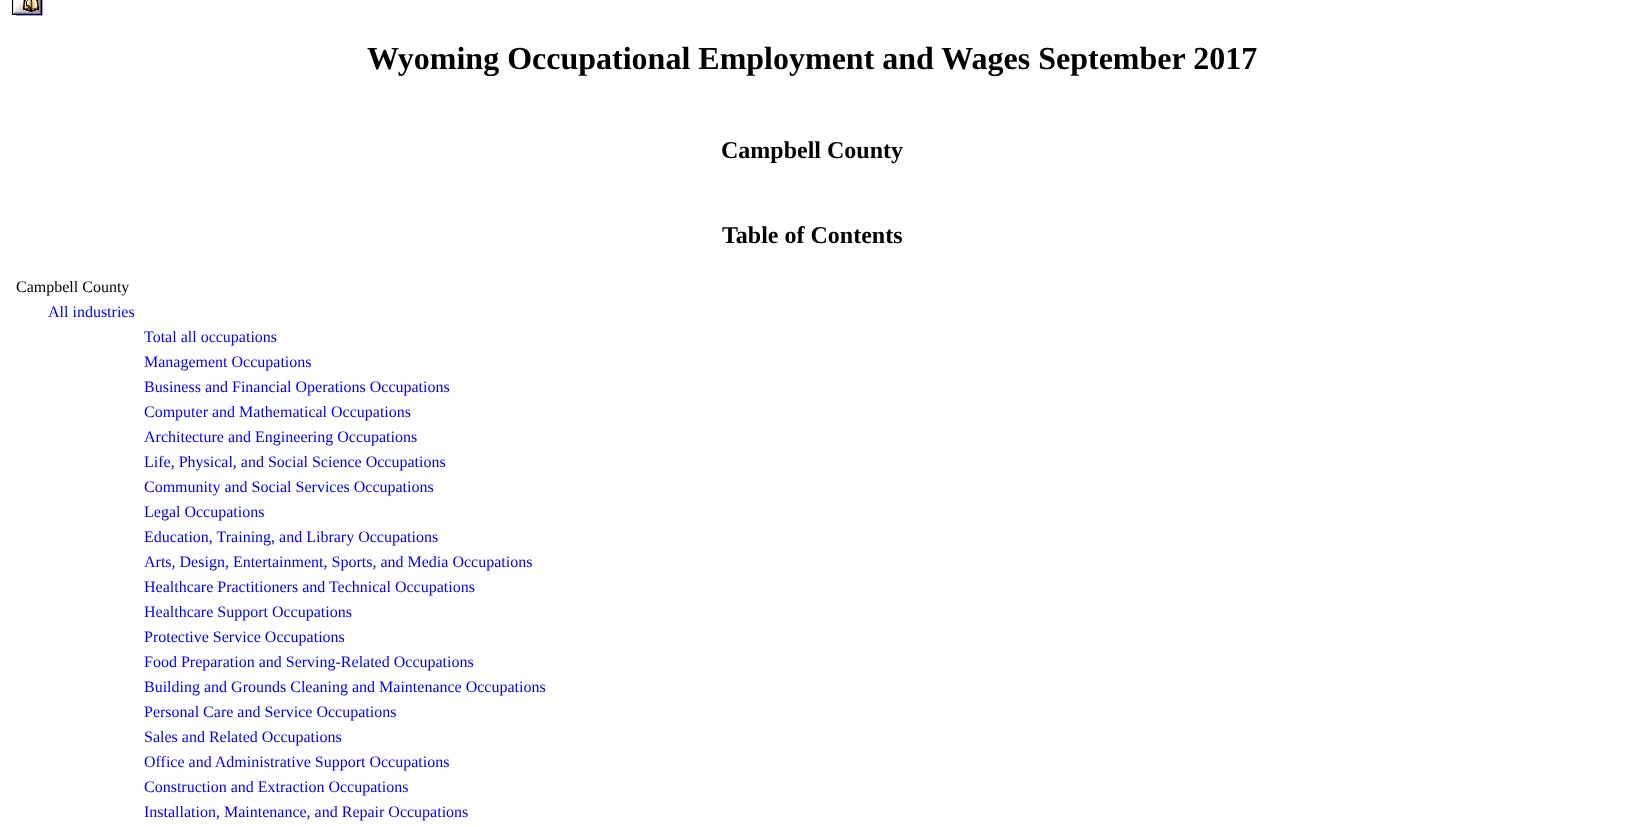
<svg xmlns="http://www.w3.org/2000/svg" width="1625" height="827">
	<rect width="100%" height="100%" fill="#FFFFFF" />
	<image x="12" y="0" width="31" height="16" href="assets/img1.png" />
	<text x="367" y="69" font-family="Liberation Serif" font-size="32" font-weight="700" fill="#000000">Wyoming Occupational Employment and Wages September 2017</text>
	<g font-family="Liberation Serif" font-size="24" font-weight="700" fill="#000000">
		<text x="721" y="158">Campbell County</text>
		<text x="722" y="243">Table of Contents</text>
	</g>
	<text x="16" y="292" font-family="Liberation Serif" font-size="16" fill="#000000">Campbell County</text>
	<g font-family="Liberation Serif" font-size="16" fill="#0000EE">
		<text x="48" y="317">All industries</text>
		<text x="144" y="342">Total all occupations</text>
		<text x="144" y="367">Management Occupations</text>
		<text x="144" y="392">Business and Financial Operations Occupations</text>
		<text x="144" y="417">Computer and Mathematical Occupations</text>
		<text x="144" y="442">Architecture and Engineering Occupations</text>
		<text x="144" y="467">Life, Physical, and Social Science Occupations</text>
		<text x="144" y="492">Community and Social Services Occupations</text>
		<text x="144" y="517">Legal Occupations</text>
		<text x="144" y="542">Education, Training, and Library Occupations</text>
		<text x="144" y="567">Arts, Design, Entertainment, Sports, and Media Occupations</text>
		<text x="144" y="592">Healthcare Practitioners and Technical Occupations</text>
		<text x="144" y="617">Healthcare Support Occupations</text>
		<text x="144" y="642">Protective Service Occupations</text>
		<text x="144" y="667">Food Preparation and Serving-Related Occupations</text>
		<text x="144" y="692">Building and Grounds Cleaning and Maintenance Occupations</text>
		<text x="144" y="717">Personal Care and Service Occupations</text>
		<text x="144" y="742">Sales and Related Occupations</text>
		<text x="144" y="767">Office and Administrative Support Occupations</text>
		<text x="144" y="792">Construction and Extraction Occupations</text>
		<text x="144" y="817">Installation, Maintenance, and Repair Occupations</text>
	</g>
</svg>
